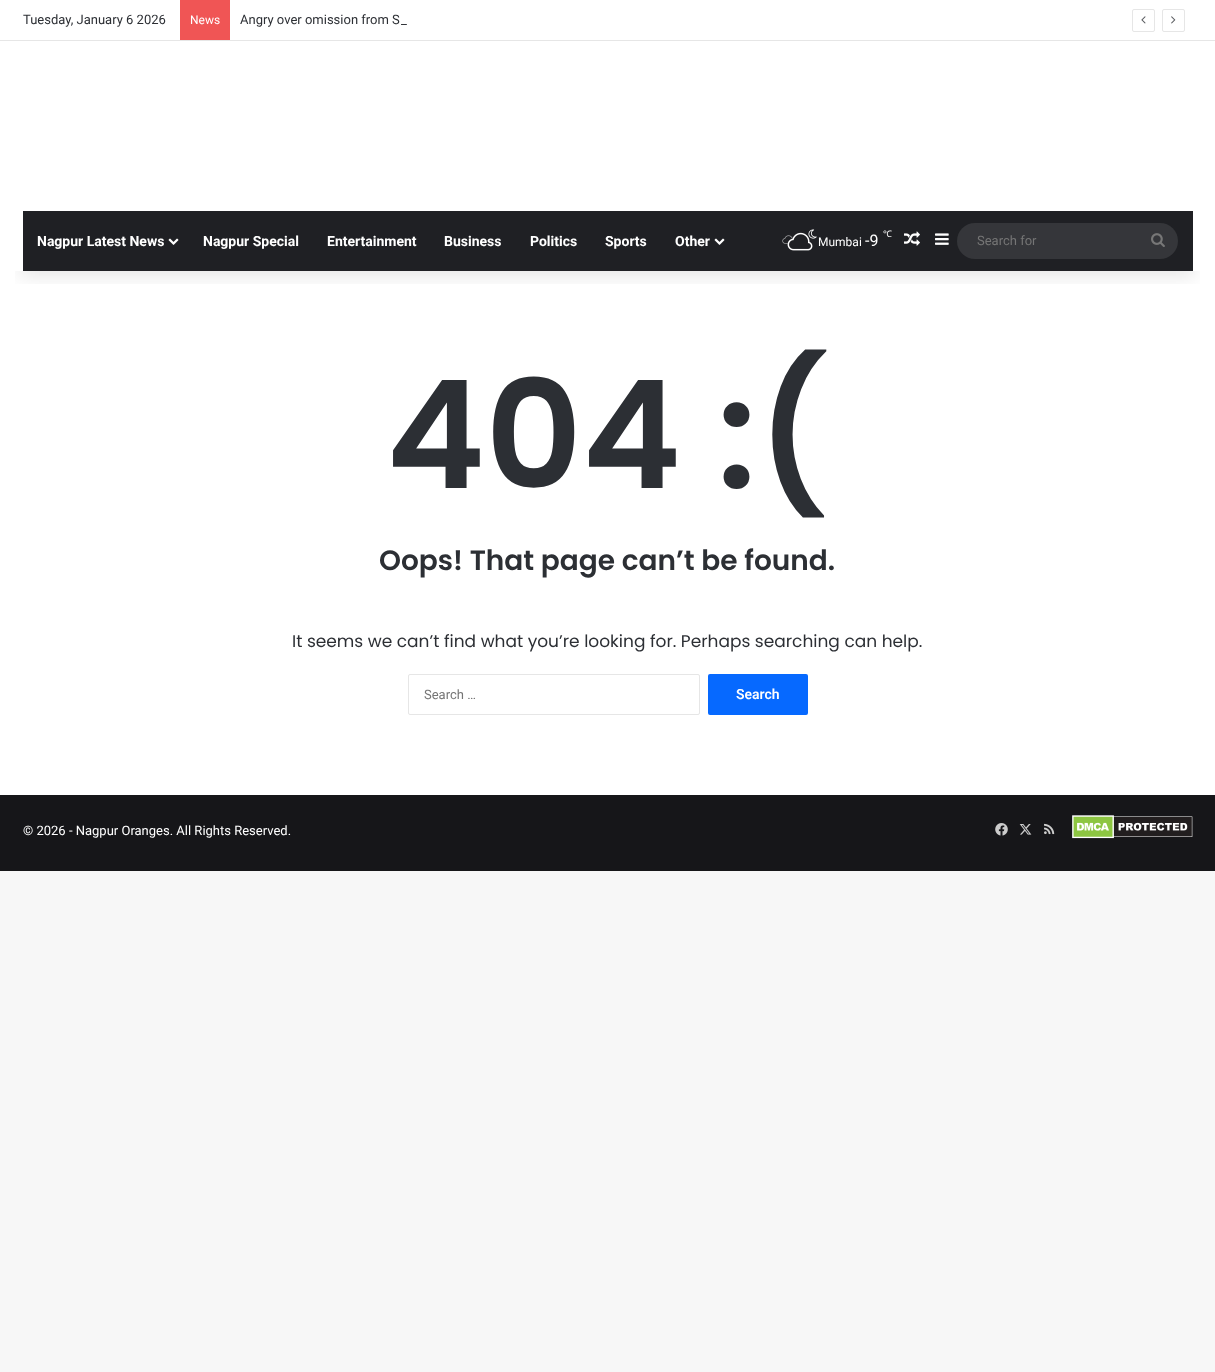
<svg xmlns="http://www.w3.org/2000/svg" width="1215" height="1372">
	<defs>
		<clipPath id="clip1"><rect x="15" y="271" width="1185" height="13" /></clipPath>
	</defs>
	<rect width="100%" height="100%" fill="#F7F7F7" />
	<rect x="0" y="0" width="1215" height="795" fill="#FFFFFF" />
	<g clip-path="url(#clip1)">
		<rect x="20" y="45" width="1175" height="231" fill="#000000" fill-opacity="0.1" filter="blur(10px)" />
	</g>
	<rect x="0" y="40" width="1215" height="1" fill="#E6E6E6" />
	<text x="23" y="24" font-family="Roboto" font-size="13" fill="#2C2F34">Tuesday, January 6 2026</text>
	<rect x="180" y="0" width="50" height="40" fill="#F05555" />
	<text x="190" y="24" font-family="Roboto" font-size="12" fill="#FFFFFF">News</text>
	<g font-family="Roboto" font-size="13" fill="#2C2F34">
		<text x="240" y="24">Angry over omission from S</text>
		<text x="401" y="24">_</text>
	</g>
	<rect x="1132.5" y="9.5" width="22" height="22" rx="1.5" fill="none" stroke="#E6E6E6" />
	<image x="1141" y="16" width="5" height="8" href="assets/img1.png" />
	<rect x="1162.5" y="9.5" width="22" height="22" rx="1.5" fill="none" stroke="#E6E6E6" />
	<image x="1171" y="16" width="5" height="8" href="assets/img2.png" />
	<rect x="23" y="211" width="1170" height="60" fill="#1F2024" />
	<text x="37" y="246" font-family="Roboto" font-size="14" font-weight="700" fill="#FFFFFF">Nagpur Latest News</text>
	<image x="168" y="238" width="11" height="7" href="assets/img3.png" />
	<g font-family="Roboto" font-size="14" font-weight="700" fill="#FFFFFF">
		<text x="203" y="246">Nagpur Special</text>
		<text x="327" y="246">Entertainment</text>
		<text x="444" y="246">Business</text>
		<text x="530" y="246">Politics</text>
		<text x="605" y="246">Sports</text>
		<text x="675" y="246">Other</text>
	</g>
	<image x="714" y="238" width="11" height="7" href="assets/img3.png" />
	<image x="808" y="229" width="9" height="10" href="assets/img4.png" />
	<image x="782" y="235" width="11" height="9" href="assets/img6.png" />
	<image x="787" y="238" width="8" height="6" href="assets/img7.png" />
	<image x="787" y="232" width="26" height="19" href="assets/img5.png" />
	<text x="818" y="246" font-family="Roboto" font-size="12" fill="#FFFFFF">Mumbai</text>
	<text x="865" y="246" font-family="Roboto" font-size="16" fill="#FFFFFF">-9</text>
	<text x="883" y="237" font-family="Noto Sans" font-size="9" fill="#FFFFFF">℃</text>
	<image x="904" y="231" width="16" height="15" href="assets/img8.png" />
	<image x="935" y="233" width="14" height="12" href="assets/img9.png" />
	<rect x="957" y="223" width="221" height="36" rx="18" fill="#35363A" />
	<text x="977" y="245" font-family="Roboto" font-size="13" fill="#757575">Search for</text>
	<image x="1151" y="233" width="14" height="14" href="assets/img10.png" />
	<text x="386" y="488" font-family="Poppins" font-size="150" font-weight="600" fill="#2C2F34">404 :(</text>
	<text x="379" y="570" font-family="Poppins" font-size="28" font-weight="600" fill="#2C2F34">Oops! That page can’t be found.</text>
	<text x="292" y="647" font-family="Poppins" font-size="17" fill="#2C2F34">It seems we can’t find what you’re looking for. Perhaps searching can help.</text>
	<rect x="408.5" y="674.5" width="291" height="40" rx="1.5" fill="none" stroke="#E6E6E6" />
	<text x="424" y="699" font-family="Roboto" font-size="13" fill="#757575">Search …</text>
	<rect x="708" y="674" width="100" height="41" rx="2" fill="#0669FF" />
	<text x="736" y="699" font-family="Roboto" font-size="14" font-weight="600" fill="#FFFFFF">Search</text>
	<rect x="0" y="795" width="1215" height="76" fill="#161619" />
	<text x="23" y="835" font-family="Roboto" font-size="13" fill="#FFFFFF">© 2026 - Nagpur Oranges. All Rights Reserved.</text>
	<image x="995" y="823" width="13" height="13" href="assets/img11.png" />
	<image x="1019" y="824" width="13" height="11" href="assets/img12.png" />
	<image x="1044" y="823" width="11" height="12" href="assets/img13.png" />
	<image x="1072" y="815" width="121" height="24" href="assets/img14.png" />
</svg>
